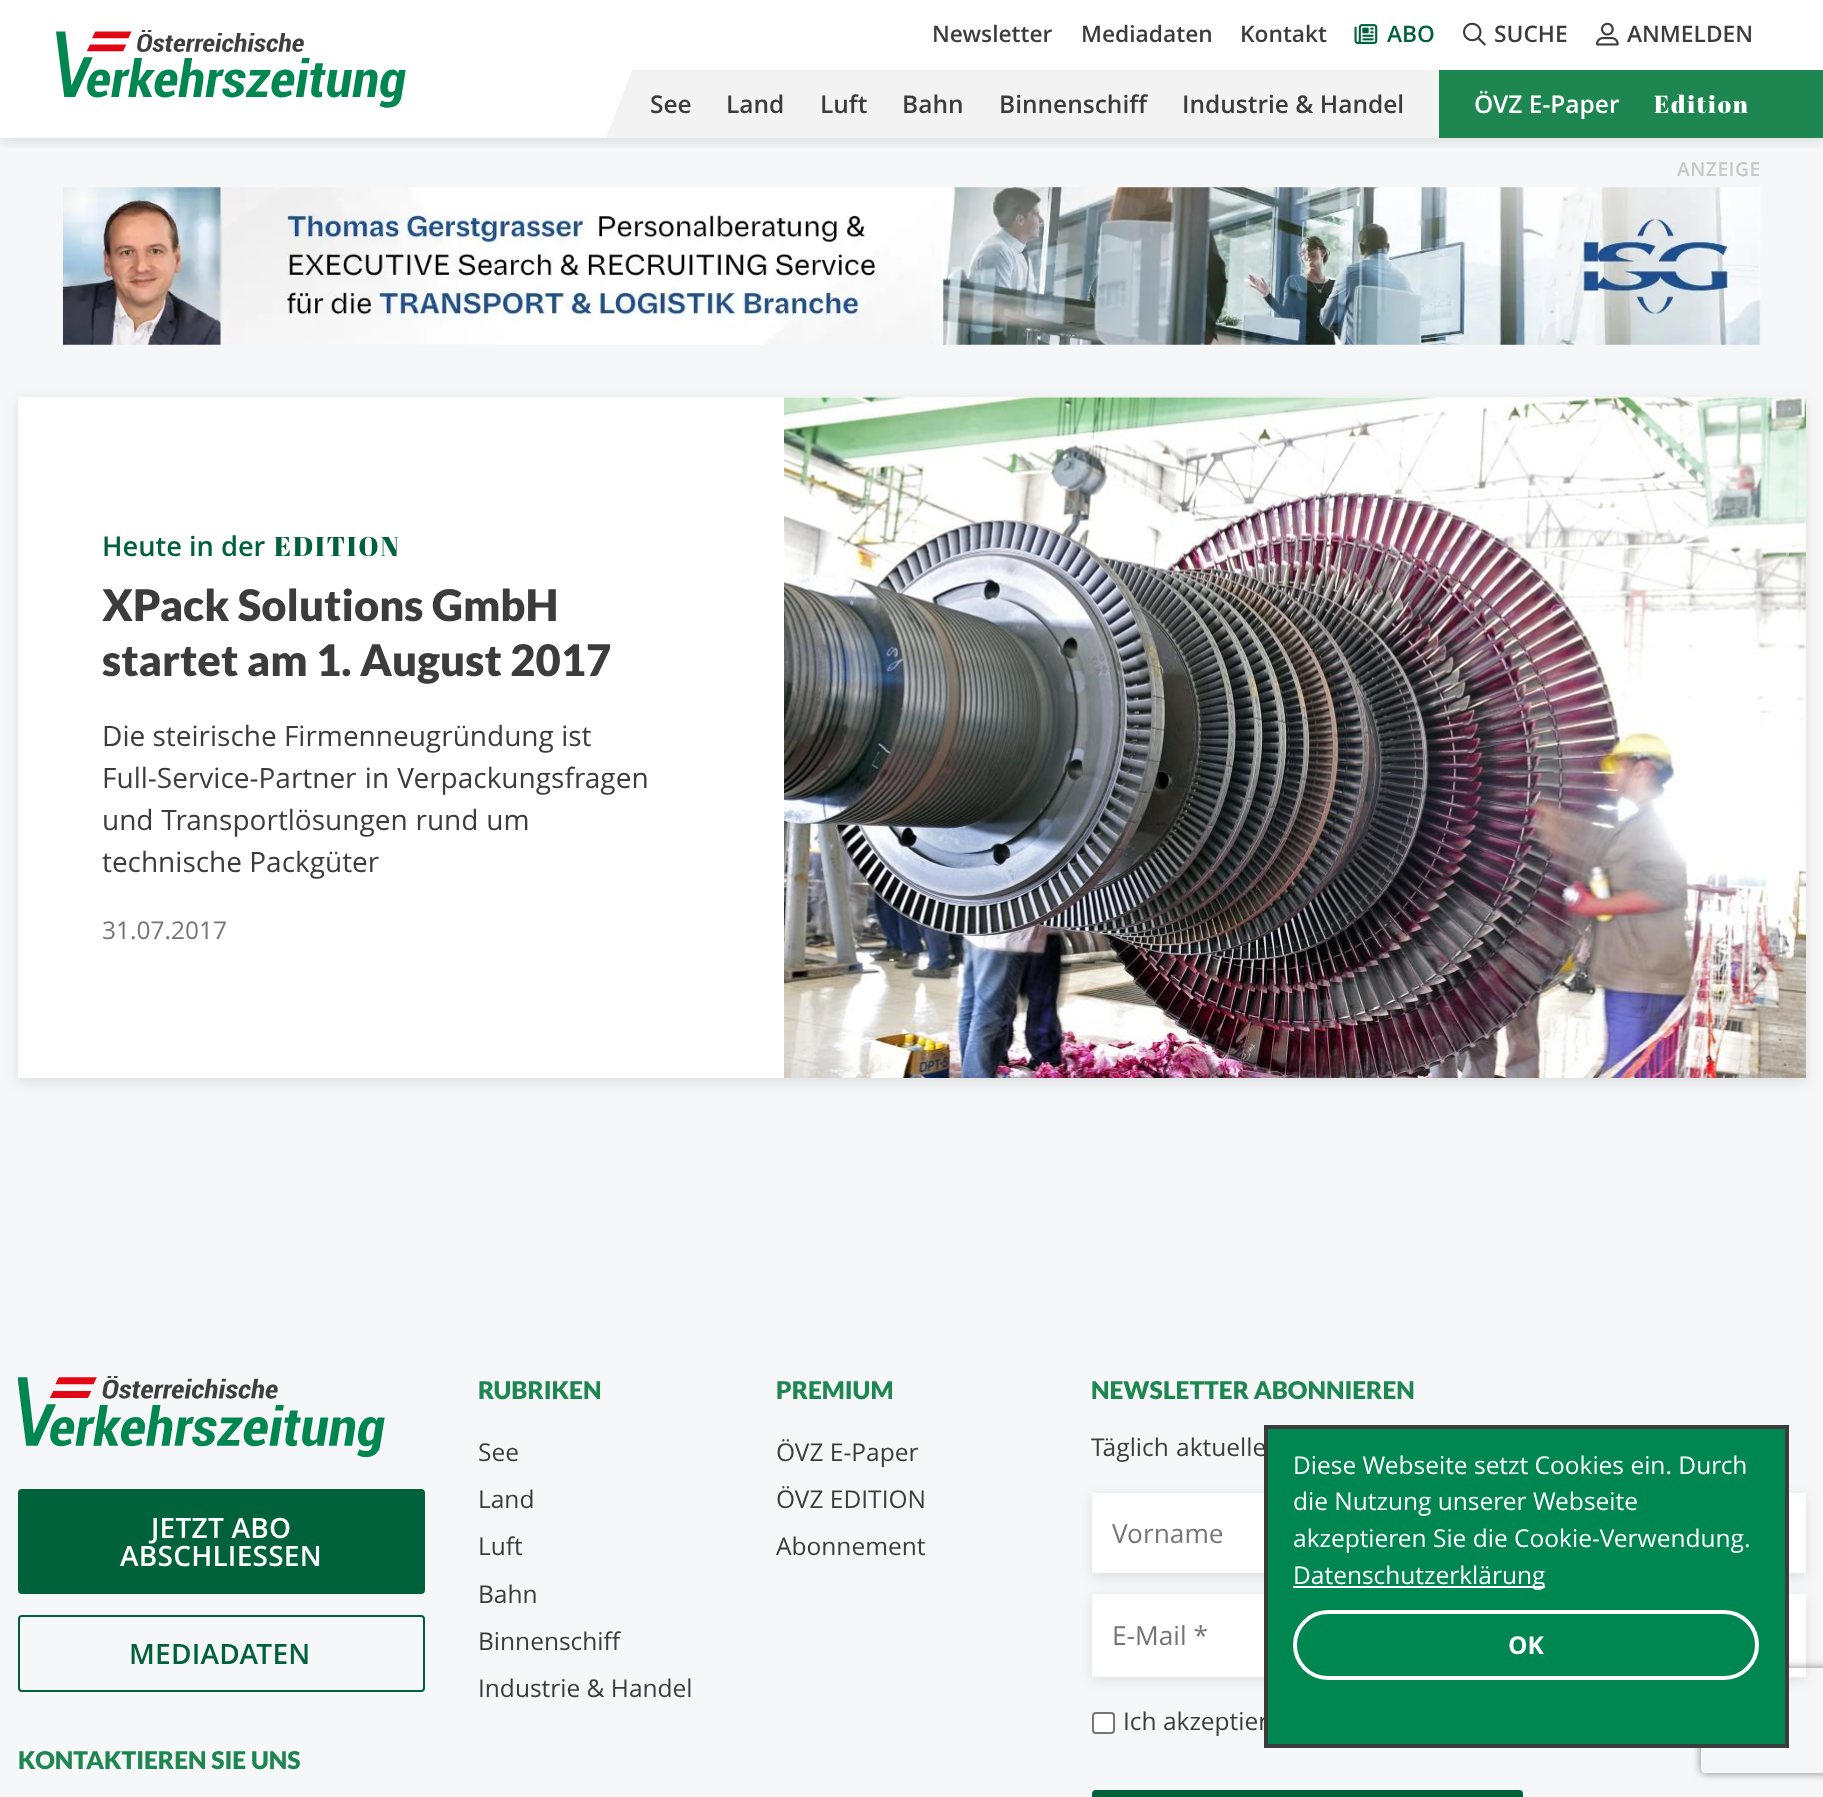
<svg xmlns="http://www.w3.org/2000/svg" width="1823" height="1797">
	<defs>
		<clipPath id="clip1"><rect x="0" y="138" width="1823" height="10" /></clipPath>
		<clipPath id="clip2"><path d="M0 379H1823V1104H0ZM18 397H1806V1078H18Z" clip-rule="evenodd" /></clipPath>
		<clipPath id="clip3"><path d="M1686 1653H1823V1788H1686ZM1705 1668H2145C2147 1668 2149 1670 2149 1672V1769C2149 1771 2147 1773 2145 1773H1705C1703 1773 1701 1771 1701 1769V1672C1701 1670 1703 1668 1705 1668Z" clip-rule="evenodd" /></clipPath>
	</defs>
	<rect width="100%" height="100%" fill="#FFFFFF" />
	<rect x="0" y="138" width="1823" height="1659" fill="#F6F7F9" />
	<g clip-path="url(#clip1)">
		<rect x="0" y="4" width="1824" height="138" fill="#000000" fill-opacity="0.1" filter="blur(7px)" />
	</g>
	<image x="56" y="30" width="350" height="78" href="assets/img1.png" />
	<g font-family="Open Sans" font-size="22.75" font-weight="600" fill="#3D3C3C">
		<text x="932" y="42">Newsletter</text>
		<text x="1081" y="42">Mediadaten</text>
		<text x="1240" y="42">Kontakt</text>
	</g>
	<image x="1354" y="24" width="24" height="20" href="assets/img2.png" />
	<text x="1387" y="42" font-family="Open Sans" font-size="22.75" font-weight="600" fill="#00623B">ABO</text>
	<image x="1463" y="22" width="23" height="24" href="assets/img3.png" />
	<text x="1494" y="42" font-family="Open Sans" font-size="22.75" font-weight="600" fill="#3D3C3C">SUCHE</text>
	<image x="1596" y="22" width="23" height="24" href="assets/img4.png" />
	<text x="1627" y="42" font-family="Open Sans" font-size="22.75" font-weight="600" fill="#3D3C3C">ANMELDEN</text>
	<rect x="632" y="70" width="807" height="68" fill="#F3F3F3" />
	<path d="M632 138H606L632 70Z" fill="#F3F3F3" />
	<g font-family="Open Sans" font-size="24.5" font-weight="600" fill="#3D3C3C">
		<text x="650" y="113">See</text>
		<text x="726" y="113">Land</text>
		<text x="820" y="113">Luft</text>
		<text x="902" y="113">Bahn</text>
		<text x="999" y="113">Binnenschiff</text>
		<text x="1182" y="113">Industrie &amp; Handel</text>
	</g>
	<rect x="1439" y="70" width="384" height="68" fill="#1E8651" />
	<text x="1474" y="113" font-family="Open Sans" font-size="24.5" font-weight="600" fill="#FFFFFF">ÖVZ E-Paper</text>
	<text x="1654" y="113" font-family="Abril Fatface" font-size="24.5" letter-spacing="1.75" fill="#FFFFFF">Edition</text>
	<text x="1677" y="176" font-family="Open Sans" font-size="19.25" font-weight="600" letter-spacing="0.5" fill="#C8C8C8">ANZEIGE</text>
	<image x="63" y="187" width="1698" height="158" href="assets/img5.png" />
	<rect x="18" y="397" width="1788" height="681" fill="#FFFFFF" />
	<g clip-path="url(#clip2)">
		<rect x="18" y="401" width="1788" height="681" fill="#000000" fill-opacity="0.1" filter="blur(7px)" />
	</g>
	<text x="102" y="556" font-family="Open Sans" font-size="27.25" font-weight="600" fill="#00623B">Heute in der</text>
	<text x="274" y="556" font-family="Abril Fatface" font-size="27.25" letter-spacing="1.75" fill="#00623B">EDITION</text>
	<g font-family="Lato" font-size="43.5" font-weight="900" fill="#3D3C3C">
		<text x="102" y="621">XPack Solutions GmbH</text>
		<text x="102" y="676">startet am 1. August 2017</text>
	</g>
	<g font-family="Open Sans" font-size="28" fill="#3D3C3C">
		<text x="102" y="746">Die steirische Firmenneugründung ist</text>
		<text x="102" y="788" word-spacing="1">Full-Service-Partner in Verpackungsfragen</text>
		<text x="102" y="830" word-spacing="0.5">und Transportlösungen rund um</text>
		<text x="102" y="872">technische Packgüter</text>
	</g>
	<text x="102" y="939" font-family="Open Sans" font-size="24.5" fill="#757575">31.07.2017</text>
	<image x="784" y="397" width="1022" height="681" href="assets/img6.png" />
	<image x="18" y="1376" width="367" height="81" href="assets/img7.png" />
	<rect x="19" y="1490" width="405" height="103" rx="3" fill="#00623B" stroke="#00623B" stroke-width="2" />
	<g font-family="Open Sans" font-size="28" font-weight="600" letter-spacing="0.25" fill="#FFFFFF">
		<text x="151" y="1538">JETZT ABO</text>
		<text x="120" y="1566">ABSCHLIESSEN</text>
	</g>
	<rect x="19" y="1616" width="405" height="75" rx="3" fill="none" stroke="#00623B" stroke-width="2" />
	<text x="129" y="1664" font-family="Open Sans" font-size="28" font-weight="600" letter-spacing="0.25" fill="#00623B">MEDIADATEN</text>
	<g font-family="Lato" font-size="24.5" font-weight="900" fill="#1E8651">
		<text x="18" y="1769">KONTAKTIEREN SIE UNS</text>
		<text x="478" y="1399">RUBRIKEN</text>
	</g>
	<g font-family="Open Sans" font-size="24.5" fill="#3D3C3C">
		<text x="478" y="1461">See</text>
		<text x="478" y="1508">Land</text>
		<text x="478" y="1555">Luft</text>
		<text x="478" y="1603">Bahn</text>
		<text x="478" y="1650">Binnenschiff</text>
		<text x="478" y="1697">Industrie &amp; Handel</text>
	</g>
	<text x="776" y="1399" font-family="Lato" font-size="24.5" font-weight="900" fill="#1E8651">PREMIUM</text>
	<g font-family="Open Sans" font-size="24.5" fill="#3D3C3C">
		<text x="776" y="1461">ÖVZ E-Paper</text>
		<text x="776" y="1508">ÖVZ EDITION</text>
		<text x="776" y="1555">Abonnement</text>
	</g>
	<text x="1091" y="1399" font-family="Lato" font-size="24.5" font-weight="900" fill="#1E8651">NEWSLETTER ABONNIEREN</text>
	<text x="1091" y="1456" word-spacing="1" font-family="Open Sans" font-size="24.5" fill="#3D3C3C">Täglich aktuelle</text>
	<rect x="1092" y="1496" width="347" height="81" fill="#000000" fill-opacity="0.1" filter="blur(7px)" />
	<rect x="1092" y="1493" width="172" height="80" fill="#FFFFFF" />
	<text x="1112" y="1543" font-family="Open Sans" font-size="26.25" fill="#757575">Vorname</text>
	<rect x="1460" y="1496" width="346" height="81" fill="#000000" fill-opacity="0.1" filter="blur(7px)" />
	<rect x="1789" y="1493" width="17" height="80" fill="#FFFFFF" />
	<rect x="1092" y="1598" width="714" height="82" fill="#000000" fill-opacity="0.1" filter="blur(7px)" />
	<rect x="1092" y="1594" width="714" height="83" fill="#FFFFFF" />
	<text x="1112" y="1645" font-family="Open Sans" font-size="26.25" fill="#757575">E-Mail *</text>
	<rect x="1093" y="1713" width="21" height="20" rx="3" fill="#FFFFFF" stroke="#767676" stroke-width="2" />
	<text x="1123" y="1730" font-family="Open Sans" font-size="24.5" fill="#3D3C3C">Ich akzeptier</text>
	<g clip-path="url(#clip3)">
		<rect x="1701" y="1668" width="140" height="105" rx="4" fill="#808080" filter="blur(4.5px)" />
	</g>
	<rect x="1093" y="1791" width="429" height="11" rx="3" fill="#00623B" stroke="#00623B" stroke-width="2" />
	<rect x="1266" y="1427" width="521" height="319" fill="#008651" stroke="#3D3C3C" stroke-width="4" />
	<g font-family="Open Sans" font-size="24.5" fill="#FFFFFF">
		<text x="1293" y="1474">Diese Webseite setzt Cookies ein. Durch</text>
		<text x="1293" y="1510">die Nutzung unserer Webseite</text>
		<text x="1293" y="1547">akzeptieren Sie die Cookie-Verwendung.</text>
	</g>
	<rect x="1293" y="1586" width="252" height="2" fill="#FFFFFF" />
	<text x="1293" y="1584" font-family="Open Sans" font-size="24.5" fill="#FFFFFF">Datenschutzerklärung</text>
	<rect x="1295" y="1612" width="462" height="66" rx="33" fill="none" stroke="#FFFFFF" stroke-width="4" />
	<text x="1508" y="1654" font-family="Open Sans" font-size="24.5" font-weight="700" fill="#FFFFFF">OK</text>
</svg>
